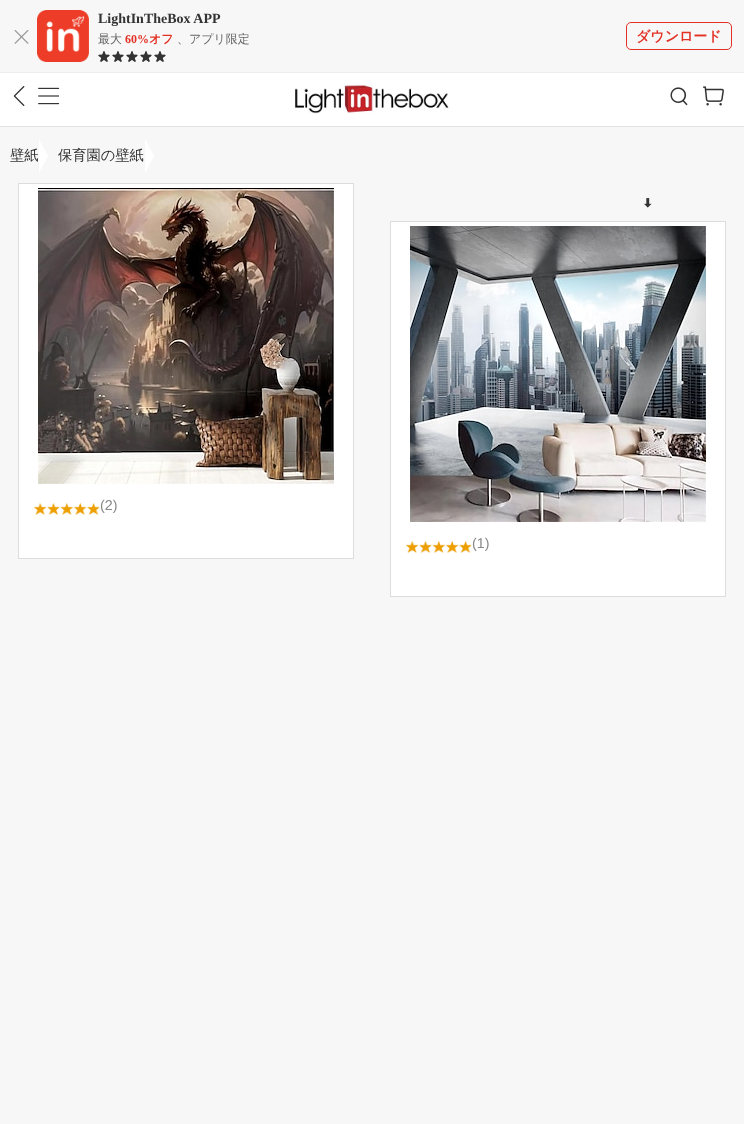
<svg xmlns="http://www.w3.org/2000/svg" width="744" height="1124">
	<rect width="100%" height="100%" fill="#F7F7F7" />
	<image x="14" y="30" width="15" height="14" href="assets/img1.png" />
	<image x="37" y="10" width="52" height="52" href="assets/img2.png" />
	<text x="98" y="23" font-family="Liberation Serif" font-size="14" font-weight="700" fill="#333333">LightInTheBox APP</text>
	<text x="98" y="43" font-family="WenQuanYi Zen Hei" font-size="12" font-weight="500" fill="#666666">最大</text>
	<text x="125" y="43" font-family="Liberation Serif" font-size="12" font-weight="700" fill="#E33124">60%</text>
	<text x="149" y="43" font-family="WenQuanYi Zen Hei" font-size="12" font-weight="700" fill="#E33124">オフ</text>
	<text x="177" y="43" font-family="WenQuanYi Zen Hei" font-size="12" font-weight="500" fill="#666666">、アプリ限定</text>
	<image x="98" y="51" width="12" height="11" href="assets/img3.png" />
	<image x="98" y="51" width="12" height="11" href="assets/img4.png" />
	<image x="112" y="51" width="12" height="11" href="assets/img3.png" />
	<image x="112" y="51" width="12" height="11" href="assets/img4.png" />
	<image x="126" y="51" width="12" height="11" href="assets/img3.png" />
	<image x="126" y="51" width="12" height="11" href="assets/img4.png" />
	<image x="140" y="51" width="12" height="11" href="assets/img3.png" />
	<image x="140" y="51" width="12" height="11" href="assets/img4.png" />
	<image x="154" y="51" width="12" height="11" href="assets/img3.png" />
	<image x="154" y="51" width="12" height="11" href="assets/img4.png" />
	<rect x="626.5" y="22.5" width="105" height="27" rx="4.5" fill="none" stroke="#E33124" />
	<text x="636" y="41" font-family="WenQuanYi Zen Hei" font-size="14" font-weight="700" fill="#E33124">ダウンロード</text>
	<rect x="0" y="73" width="744" height="53" fill="#FFFFFF" />
	<rect x="0" y="72" width="744" height="1" fill="#EEEEEE" />
	<rect x="0" y="126" width="744" height="1" fill="#E2E2E2" />
	<image x="13" y="86" width="12" height="20" href="assets/img5.png" />
	<image x="38" y="87" width="22" height="18" href="assets/img6.png" />
	<image x="295" y="84" width="154" height="30" href="assets/img7.png" />
	<image x="670" y="87" width="18" height="19" href="assets/img8.png" />
	<image x="703" y="86" width="21" height="20" href="assets/img9.png" />
	<text x="10" y="160" font-family="WenQuanYi Zen Hei" font-size="14.25" font-weight="500" fill="#333333">壁紙</text>
	<path d="M39 173V139L48 156Z" fill="#FFFFFF" />
	<text x="58" y="160" font-family="WenQuanYi Zen Hei" font-size="14.25" font-weight="500" fill="#333333">保育園の壁紙</text>
	<path d="M145 173V139L154 156Z" fill="#FFFFFF" />
	<image x="644" y="198" width="8" height="10" href="assets/img10.png" />
	<rect x="18.5" y="183.5" width="335" height="375" fill="#FFFFFF" stroke="#DDDDDD" />
	<image x="38" y="188" width="296" height="296" href="assets/img11.png" />
	<image x="34" y="503" width="66" height="12" href="assets/img12.png" />
	<text x="100" y="510" font-family="Liberation Sans" font-size="14.25" fill="#888888">(2)</text>
	<rect x="390.5" y="221.5" width="335" height="375" fill="#FFFFFF" stroke="#DDDDDD" />
	<image x="410" y="226" width="296" height="296" href="assets/img13.png" />
	<image x="406" y="541" width="66" height="12" href="assets/img12.png" />
	<text x="472" y="548" font-family="Liberation Sans" font-size="14.25" fill="#888888">(1)</text>
</svg>
